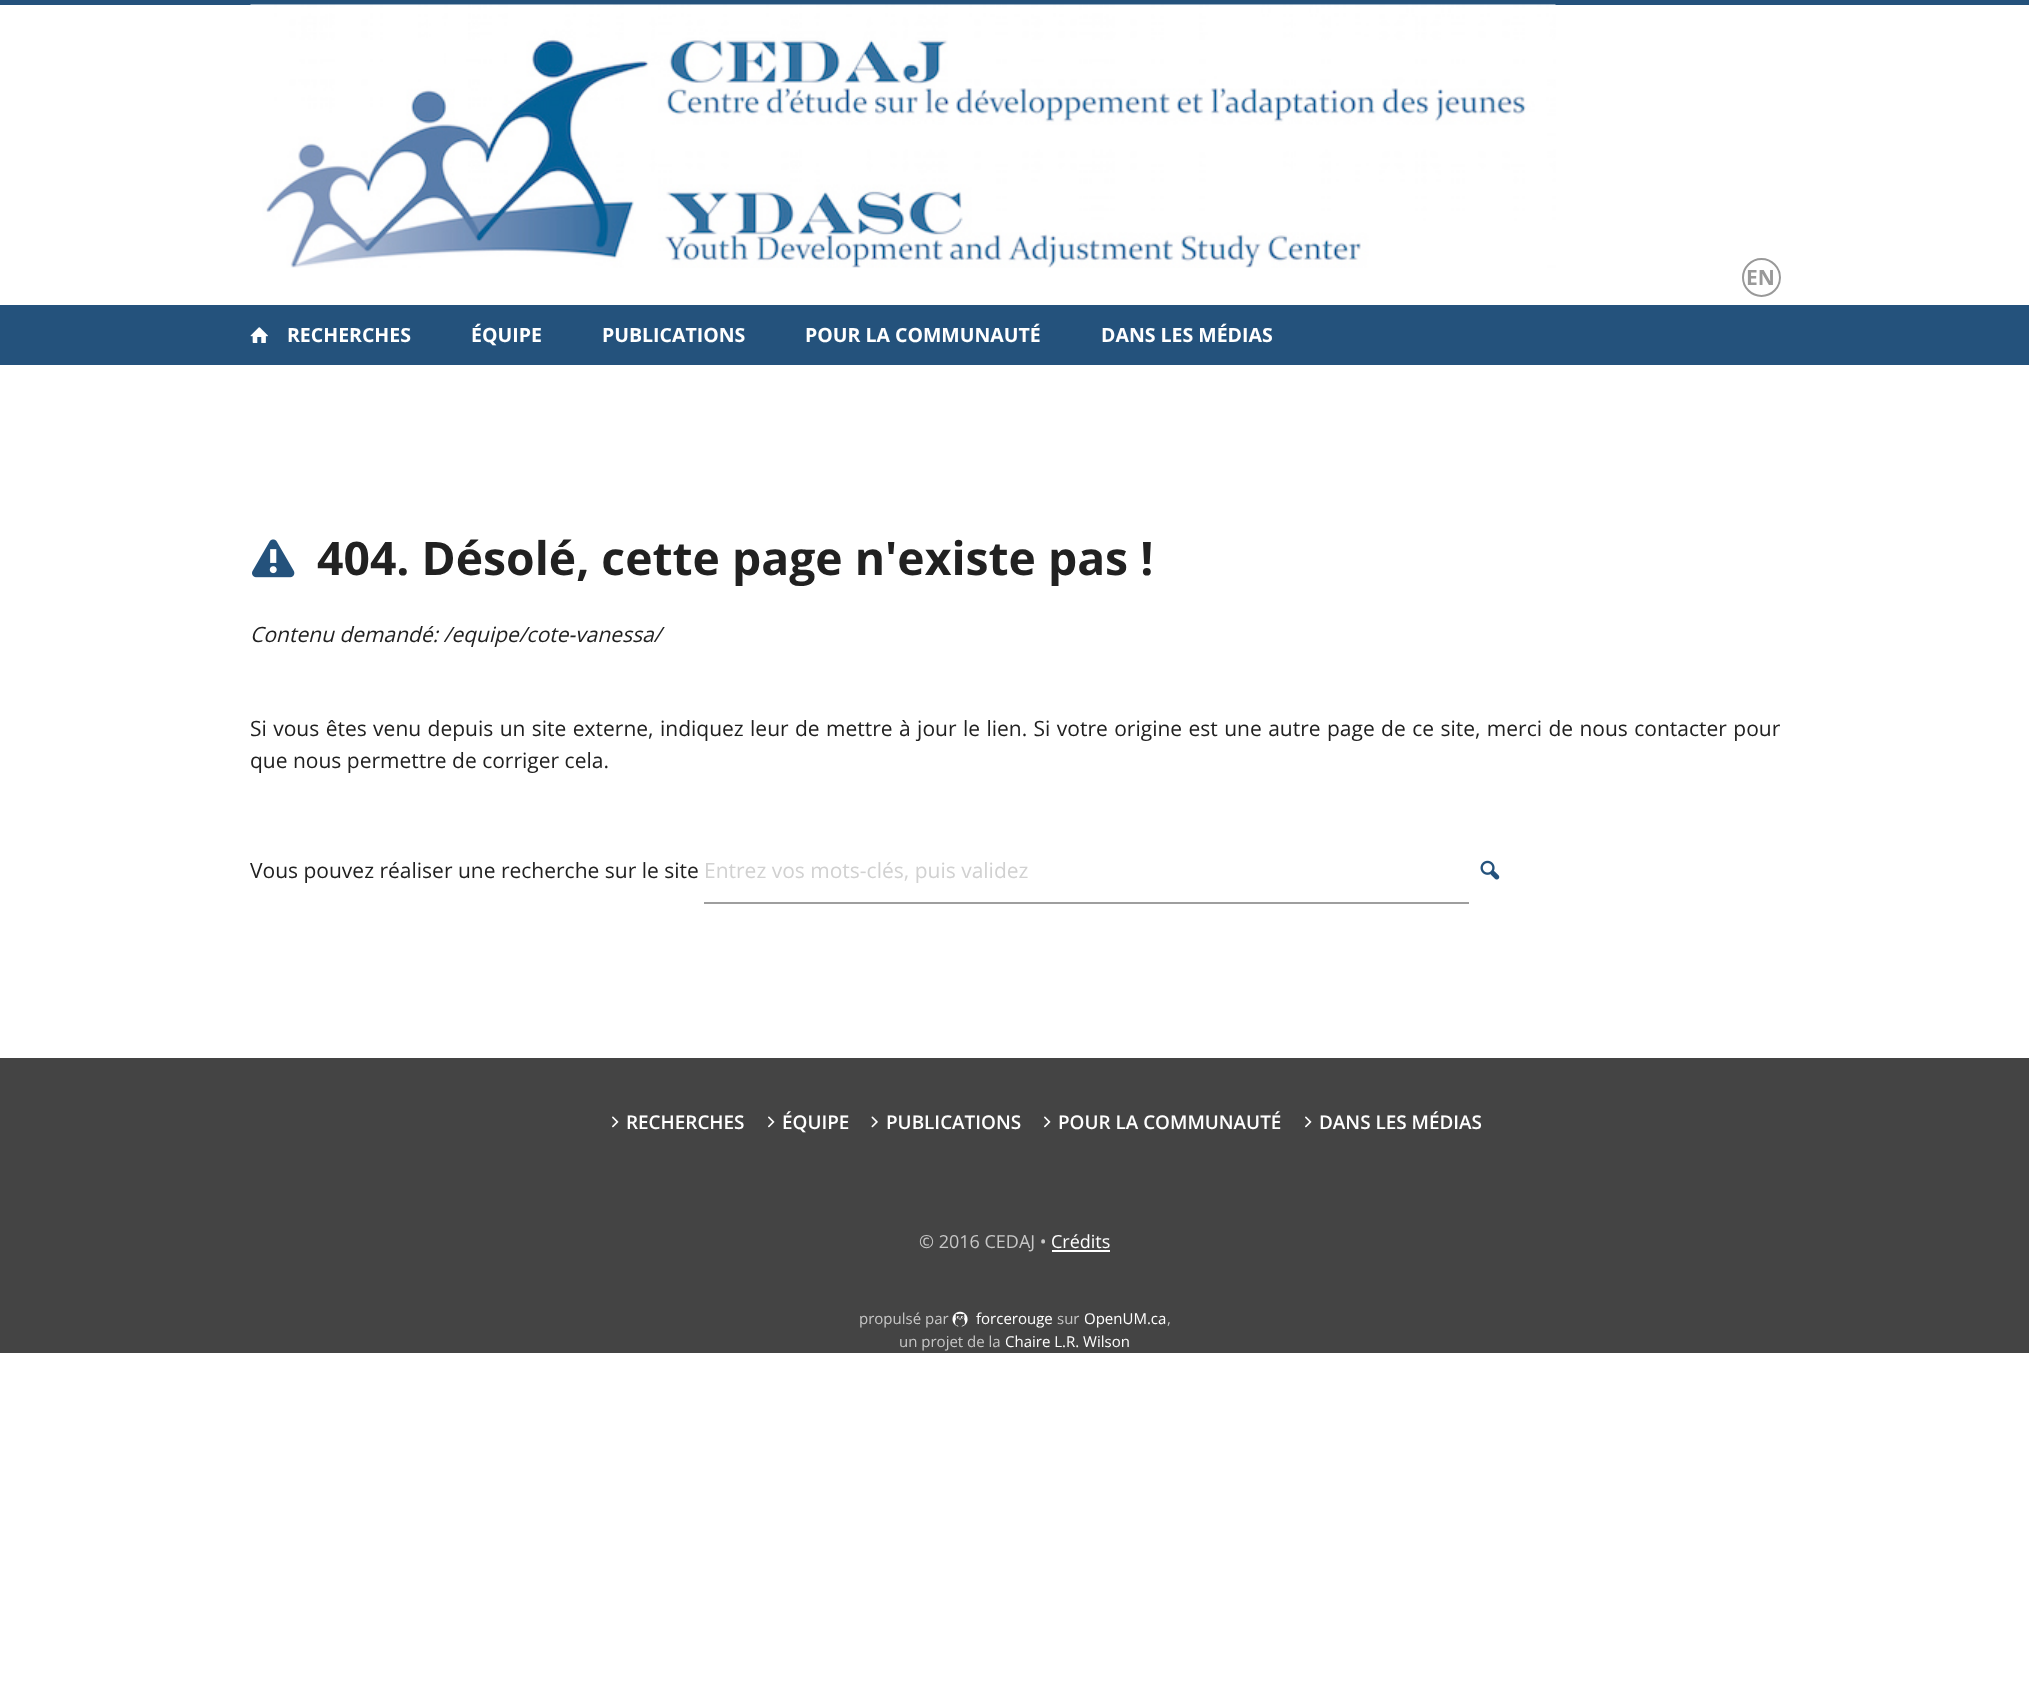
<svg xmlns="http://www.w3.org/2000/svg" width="2029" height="1700">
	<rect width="100%" height="100%" fill="#FFFFFF" />
	<rect x="0" y="0" width="2029" height="5" fill="#24527C" />
	<image x="250" y="4" width="1306" height="264" href="assets/img1.png" />
	<circle cx="1761.5" cy="277.5" r="18.5" fill="none" stroke="#999999" stroke-width="2" />
	<text x="1746" y="285" font-family="Open Sans" font-size="21" font-weight="700" fill="#999999">EN</text>
	<rect x="0" y="305" width="2029" height="60" fill="#24527C" />
	<image x="250" y="327" width="18" height="16" href="assets/img2.png" />
	<g font-family="Open Sans" font-size="19.5" font-weight="700" fill="#FFFFFF">
		<text x="287" y="342">RECHERCHES</text>
		<text x="471" y="342">ÉQUIPE</text>
		<text x="602" y="342">PUBLICATIONS</text>
		<text x="805" y="342">POUR LA COMMUNAUTÉ</text>
		<text x="1101" y="342">DANS LES MÉDIAS</text>
	</g>
	<image x="252" y="539" width="43" height="39" href="assets/img3.png" />
	<text x="317" y="575" font-family="Open Sans" font-size="46.25" font-weight="700" fill="#212121">404. Désolé, cette page n'existe pas !</text>
	<text x="250" y="642" font-family="Open Sans" font-size="21" font-style="italic" fill="#212121">Contenu demandé: /equipe/cote-vanessa/</text>
	<g font-family="Open Sans" font-size="21" fill="#212121">
		<text x="250" y="736" word-spacing="0.95">Si vous êtes venu depuis un site externe, indiquez leur de mettre à jour le lien. Si votre origine est une autre page de ce site, merci de nous contacter pour</text>
		<text x="250" y="768">que nous permettre de corriger cela.</text>
		<text x="250" y="878">Vous pouvez réaliser une recherche sur le site</text>
	</g>
	<rect x="704" y="902" width="765" height="2" fill="#9E9E9E" />
	<text x="704" y="878" font-family="Open Sans" font-size="21" fill="#D1D1D1">Entrez vos mots-clés, puis validez</text>
	<image x="1480" y="860" width="20" height="20" href="assets/img4.png" />
	<rect x="0" y="1058" width="2029" height="295" fill="#444444" />
	<image x="612" y="1116" width="7" height="12" href="assets/img5.png" />
	<text x="626" y="1129" font-family="Open Sans" font-size="18.9" font-weight="600" fill="#FFFFFF">RECHERCHES</text>
	<image x="768" y="1116" width="7" height="12" href="assets/img5.png" />
	<text x="782" y="1129" font-family="Open Sans" font-size="18.9" font-weight="600" fill="#FFFFFF">ÉQUIPE</text>
	<image x="871" y="1116" width="7" height="12" href="assets/img6.png" />
	<text x="886" y="1129" font-family="Open Sans" font-size="18.9" font-weight="600" fill="#FFFFFF">PUBLICATIONS</text>
	<image x="1044" y="1116" width="7" height="12" href="assets/img5.png" />
	<text x="1058" y="1129" font-family="Open Sans" font-size="18.9" font-weight="600" fill="#FFFFFF">POUR LA COMMUNAUTÉ</text>
	<image x="1305" y="1116" width="7" height="12" href="assets/img5.png" />
	<text x="1319" y="1129" font-family="Open Sans" font-size="18.9" font-weight="600" fill="#FFFFFF">DANS LES MÉDIAS</text>
	<text x="919" y="1248" font-family="Open Sans" font-size="18" fill="#C7C7C7">© 2016 CEDAJ •</text>
	<text x="1051" y="1248" font-family="Open Sans" font-size="18" fill="#FFFFFF">Crédits</text>
	<rect x="1052" y="1250" width="58" height="2" fill="#FFFFFF" />
	<text x="859" y="1324" font-family="Open Sans" font-size="15" fill="#C7C7C7">propulsé par</text>
	<image x="952" y="1311" width="16" height="16" href="assets/img7.png" />
	<text x="976" y="1324" font-family="Open Sans" font-size="15" fill="#FFFFFF">forcerouge</text>
	<text x="1057" y="1324" font-family="Open Sans" font-size="15" fill="#C7C7C7">sur</text>
	<text x="1084" y="1324" font-family="Open Sans" font-size="15" fill="#FFFFFF">OpenUM.ca</text>
	<g font-family="Open Sans" font-size="15" fill="#C7C7C7">
		<text x="1167" y="1324">,</text>
		<text x="899" y="1347">un projet de la</text>
	</g>
	<text x="1005" y="1347" font-family="Open Sans" font-size="15" fill="#FFFFFF">Chaire L.R. Wilson</text>
</svg>
